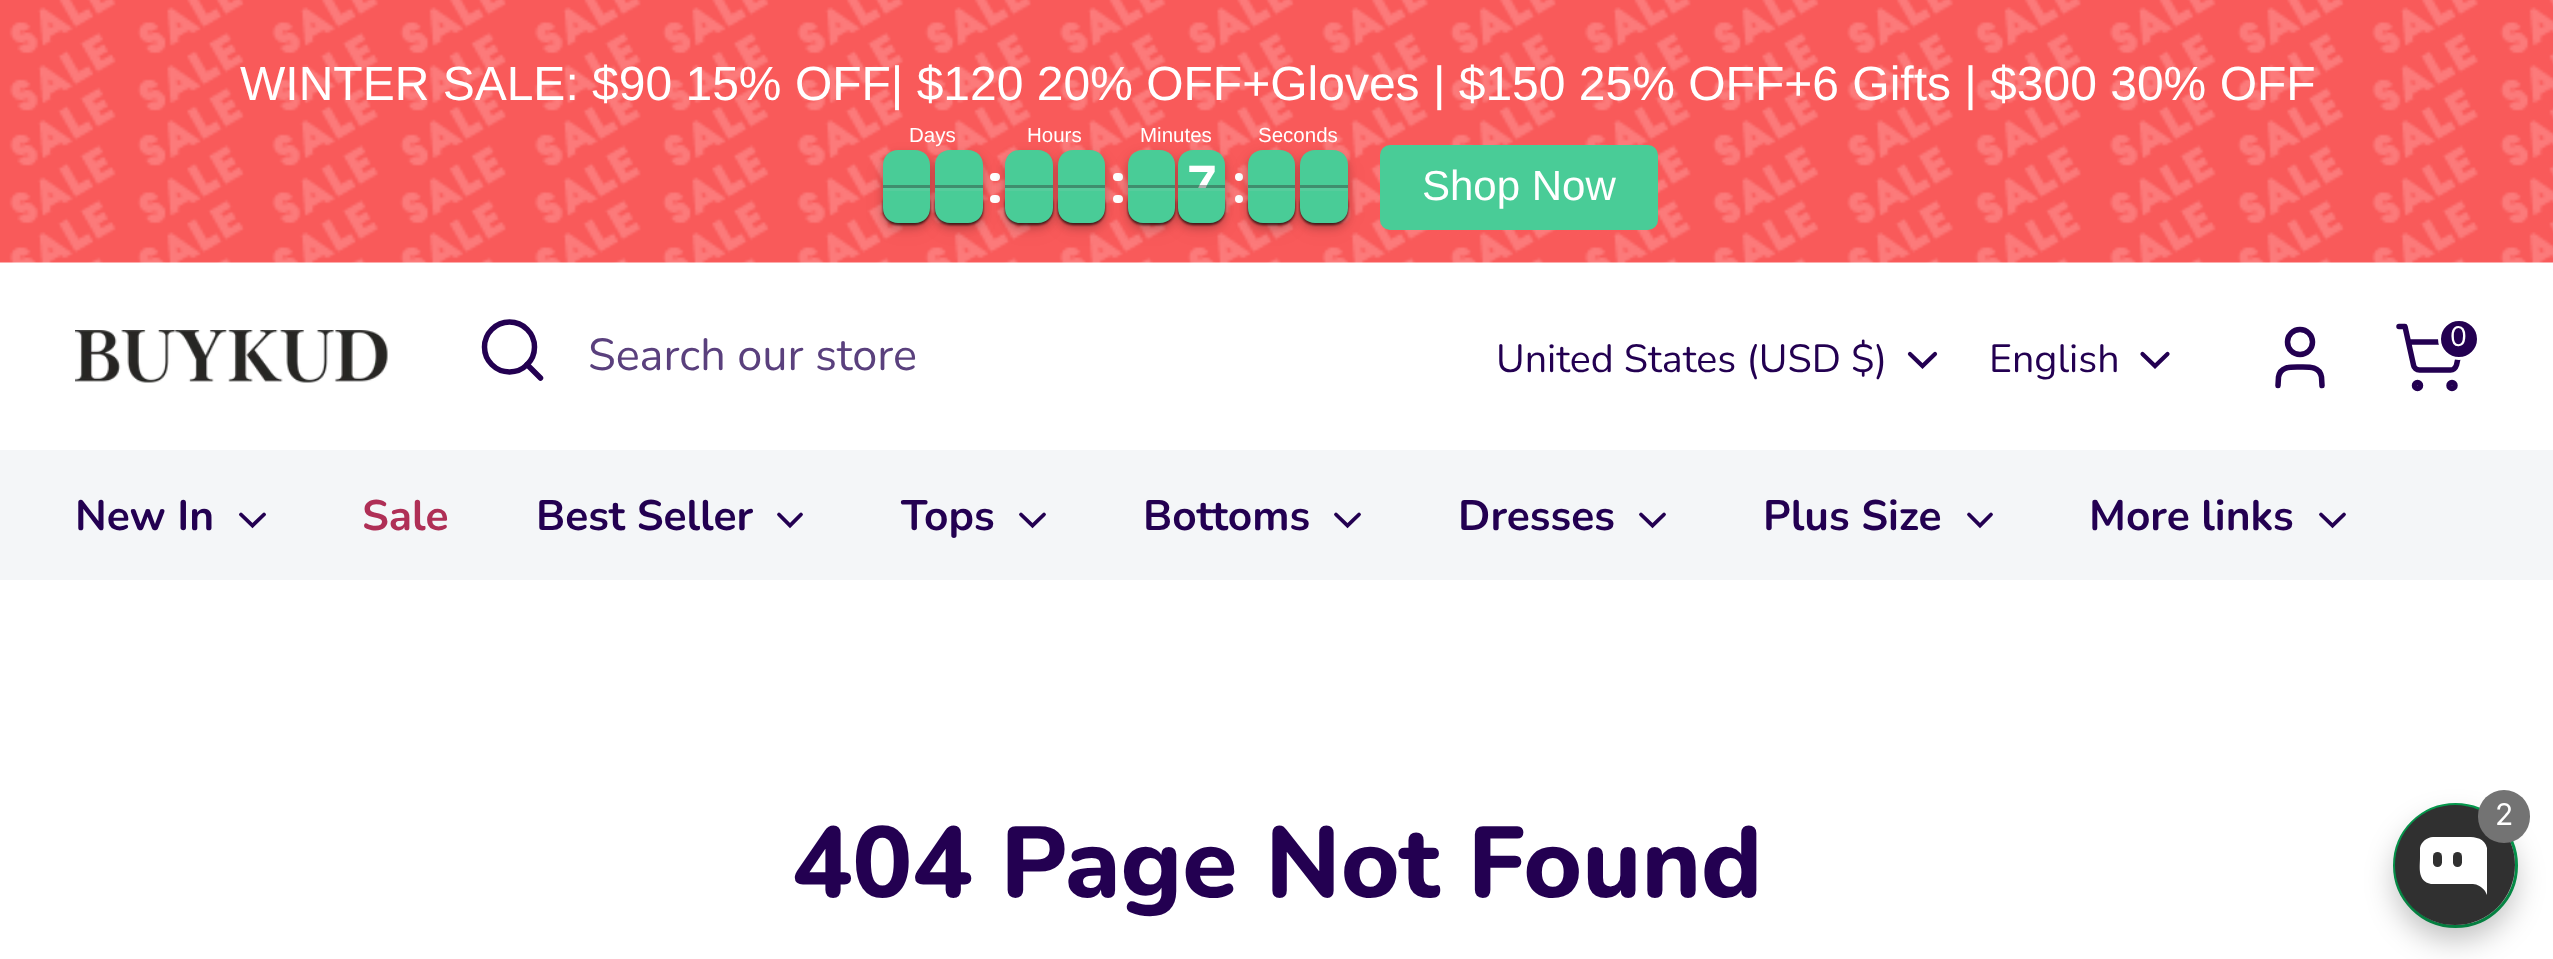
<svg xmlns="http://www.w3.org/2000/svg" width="2553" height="959">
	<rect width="100%" height="100%" fill="#FFFFFF" />
	<image x="0" y="0" width="2553" height="263" href="assets/img1.png" />
	<text x="240" y="100" font-family="Liberation Sans" font-size="48" fill="#FFFFFF">WINTER SALE: $90 15% OFF| $120 20% OFF+Gloves | $150 25% OFF+6 Gifts | $300 30% OFF</text>
	<rect x="883" y="158" width="47" height="72" rx="15" fill="#000000" fill-opacity="0.05" filter="blur(10px)" />
	<rect x="883" y="155" width="47" height="73" rx="15" fill="#000000" fill-opacity="0.24" filter="blur(4px)" />
	<rect x="883" y="190" width="47" height="35" rx="15" fill="#000000" fill-opacity="0.4" filter="blur(1px)" />
	<rect x="935" y="158" width="48" height="72" rx="15" fill="#000000" fill-opacity="0.05" filter="blur(10px)" />
	<rect x="935" y="155" width="48" height="73" rx="15" fill="#000000" fill-opacity="0.24" filter="blur(4px)" />
	<path d="M898 150H915C923.5 150 930 156.5 930 165V188H883V165C883 156.5 889.5 150 898 150Z" fill="#49CC97" />
	<rect x="883" y="185" width="47" height="3" fill="#333333" fill-opacity="0.4" />
	<rect x="883" y="190" width="47" height="35" rx="15" fill="#000000" fill-opacity="0.4" filter="blur(1px)" />
	<path d="M883 188H930V208C930 216.5 923.5 223 915 223H898C889.5 223 883 216.5 883 208Z" fill="#49CC97" />
	<rect x="883" y="188" width="47" height="3" fill="#CCCCCC" fill-opacity="0.1" />
	<rect x="935" y="190" width="48" height="35" rx="15" fill="#000000" fill-opacity="0.4" filter="blur(1px)" />
	<rect x="990" y="173" width="10" height="8" rx="4" fill="#FFFFFF" />
	<rect x="990" y="195" width="10" height="8" rx="4" fill="#FFFFFF" />
	<rect x="1005" y="158" width="48" height="72" rx="15" fill="#000000" fill-opacity="0.05" filter="blur(10px)" />
	<path d="M950 150H968C976.5 150 983 156.5 983 165V188H935V165C935 156.5 941.5 150 950 150Z" fill="#49CC97" />
	<rect x="935" y="185" width="48" height="3" fill="#333333" fill-opacity="0.4" />
	<rect x="935" y="190" width="48" height="35" rx="15" fill="#000000" fill-opacity="0.4" filter="blur(1px)" />
	<path d="M935 188H983V208C983 216.5 976.5 223 968 223H950C941.5 223 935 216.5 935 208Z" fill="#49CC97" />
	<rect x="935" y="188" width="48" height="3" fill="#CCCCCC" fill-opacity="0.1" />
	<text x="909" y="142" font-family="Liberation Sans" font-size="20.5" fill="#FFFFFF">Days</text>
	<rect x="1005" y="155" width="48" height="73" rx="15" fill="#000000" fill-opacity="0.24" filter="blur(4px)" />
	<rect x="1005" y="190" width="48" height="35" rx="15" fill="#000000" fill-opacity="0.4" filter="blur(1px)" />
	<rect x="1058" y="158" width="47" height="72" rx="15" fill="#000000" fill-opacity="0.05" filter="blur(10px)" />
	<rect x="1058" y="155" width="47" height="73" rx="15" fill="#000000" fill-opacity="0.24" filter="blur(4px)" />
	<path d="M1020 150H1038C1046.5 150 1053 156.5 1053 165V188H1005V165C1005 156.5 1011.5 150 1020 150Z" fill="#49CC97" />
	<rect x="1005" y="185" width="48" height="3" fill="#333333" fill-opacity="0.4" />
	<rect x="1005" y="190" width="48" height="35" rx="15" fill="#000000" fill-opacity="0.4" filter="blur(1px)" />
	<path d="M1005 188H1053V208C1053 216.5 1046.5 223 1038 223H1020C1011.5 223 1005 216.5 1005 208Z" fill="#49CC97" />
	<rect x="1005" y="188" width="48" height="3" fill="#CCCCCC" fill-opacity="0.1" />
	<rect x="1058" y="190" width="47" height="35" rx="15" fill="#000000" fill-opacity="0.4" filter="blur(1px)" />
	<rect x="1113" y="173" width="10" height="8" rx="4" fill="#FFFFFF" />
	<rect x="1113" y="195" width="10" height="8" rx="4" fill="#FFFFFF" />
	<rect x="1128" y="158" width="47" height="72" rx="15" fill="#000000" fill-opacity="0.05" filter="blur(10px)" />
	<path d="M1073 150H1090C1098.5 150 1105 156.5 1105 165V188H1058V165C1058 156.5 1064.5 150 1073 150Z" fill="#49CC97" />
	<rect x="1058" y="185" width="47" height="3" fill="#333333" fill-opacity="0.4" />
	<rect x="1058" y="190" width="47" height="35" rx="15" fill="#000000" fill-opacity="0.4" filter="blur(1px)" />
	<path d="M1058 188H1105V208C1105 216.5 1098.5 223 1090 223H1073C1064.5 223 1058 216.5 1058 208Z" fill="#49CC97" />
	<rect x="1058" y="188" width="47" height="3" fill="#CCCCCC" fill-opacity="0.1" />
	<text x="1027" y="142" font-family="Liberation Sans" font-size="20.5" fill="#FFFFFF">Hours</text>
	<rect x="1128" y="155" width="47" height="73" rx="15" fill="#000000" fill-opacity="0.24" filter="blur(4px)" />
	<rect x="1128" y="190" width="47" height="35" rx="15" fill="#000000" fill-opacity="0.4" filter="blur(1px)" />
	<rect x="1178" y="158" width="47" height="72" rx="15" fill="#000000" fill-opacity="0.05" filter="blur(10px)" />
	<rect x="1178" y="155" width="47" height="73" rx="15" fill="#000000" fill-opacity="0.24" filter="blur(4px)" />
	<rect x="1178" y="190" width="47" height="35" rx="15" fill="#000000" fill-opacity="0.4" filter="blur(1px)" />
	<path d="M1143 150H1160C1168.5 150 1175 156.5 1175 165V188H1128V165C1128 156.5 1134.5 150 1143 150Z" fill="#49CC97" />
	<rect x="1128" y="185" width="47" height="3" fill="#333333" fill-opacity="0.4" />
	<rect x="1128" y="190" width="47" height="35" rx="15" fill="#000000" fill-opacity="0.4" filter="blur(1px)" />
	<path d="M1128 188H1175V208C1175 216.5 1168.5 223 1160 223H1143C1134.5 223 1128 216.5 1128 208Z" fill="#49CC97" />
	<rect x="1128" y="188" width="47" height="3" fill="#CCCCCC" fill-opacity="0.1" />
	<text x="1140" y="142" font-family="Liberation Sans" font-size="20.5" fill="#FFFFFF">Minutes</text>
	<circle cx="1239" cy="177" r="4" fill="#FFFFFF" />
	<circle cx="1239" cy="199" r="4" fill="#FFFFFF" />
	<rect x="1248" y="158" width="47" height="72" rx="15" fill="#000000" fill-opacity="0.05" filter="blur(10px)" />
	<path d="M1193 150H1210C1218.5 150 1225 156.5 1225 165V188H1178V165C1178 156.5 1184.5 150 1193 150Z" fill="#49CC97" />
	<text x="1187" y="203" font-family="Liberation Sans" font-size="54" font-weight="700" fill="#FFFFFF">7</text>
	<rect x="1178" y="185" width="47" height="3" fill="#333333" fill-opacity="0.4" />
	<rect x="1178" y="190" width="47" height="35" rx="15" fill="#000000" fill-opacity="0.4" filter="blur(1px)" />
	<path d="M1178 188H1225V208C1225 216.5 1218.5 223 1210 223H1193C1184.5 223 1178 216.5 1178 208Z" fill="#49CC97" />
	<rect x="1178" y="188" width="47" height="3" fill="#CCCCCC" fill-opacity="0.1" />
	<rect x="1248" y="155" width="47" height="73" rx="15" fill="#000000" fill-opacity="0.24" filter="blur(4px)" />
	<rect x="1248" y="190" width="47" height="35" rx="15" fill="#000000" fill-opacity="0.4" filter="blur(1px)" />
	<rect x="1300" y="158" width="48" height="72" rx="15" fill="#000000" fill-opacity="0.05" filter="blur(10px)" />
	<rect x="1300" y="155" width="48" height="73" rx="15" fill="#000000" fill-opacity="0.24" filter="blur(4px)" />
	<path d="M1263 150H1280C1288.5 150 1295 156.5 1295 165V188H1248V165C1248 156.5 1254.5 150 1263 150Z" fill="#49CC97" />
	<rect x="1248" y="185" width="47" height="3" fill="#333333" fill-opacity="0.4" />
	<rect x="1248" y="190" width="47" height="35" rx="15" fill="#000000" fill-opacity="0.4" filter="blur(1px)" />
	<path d="M1248 188H1295V208C1295 216.5 1288.5 223 1280 223H1263C1254.5 223 1248 216.5 1248 208Z" fill="#49CC97" />
	<rect x="1248" y="188" width="47" height="3" fill="#CCCCCC" fill-opacity="0.1" />
	<text x="1258" y="142" font-family="Liberation Sans" font-size="20.5" fill="#FFFFFF">Seconds</text>
	<rect x="1300" y="190" width="48" height="35" rx="15" fill="#000000" fill-opacity="0.4" filter="blur(1px)" />
	<path d="M1315 150H1333C1341.5 150 1348 156.5 1348 165V188H1300V165C1300 156.5 1306.5 150 1315 150Z" fill="#49CC97" />
	<rect x="1300" y="185" width="48" height="3" fill="#333333" fill-opacity="0.4" />
	<rect x="1300" y="190" width="48" height="35" rx="15" fill="#000000" fill-opacity="0.4" filter="blur(1px)" />
	<path d="M1300 188H1348V208C1348 216.5 1341.5 223 1333 223H1315C1306.5 223 1300 216.5 1300 208Z" fill="#49CC97" />
	<rect x="1300" y="188" width="48" height="3" fill="#CCCCCC" fill-opacity="0.1" />
	<rect x="1380" y="145" width="278" height="85" rx="10" fill="#49CC97" />
	<text x="1422" y="200" font-family="Liberation Sans" font-size="42" fill="#FFFFFF">Shop Now</text>
	<image x="75" y="330" width="313" height="53" href="assets/img2.png" />
	<circle cx="509.5" cy="347" r="25" fill="none" stroke="#230051" stroke-width="5.5" />
	<path d="M540.5 378L527 364.5" fill="none" stroke="#230051" stroke-width="5.5" stroke-linecap="round" stroke-linejoin="round" />
	<text x="588" y="370" font-family="Nunito" font-size="45" fill="#5A407D">Search our store</text>
	<path d="M2322 385.5L2321.5 377C2319.5 366 2308.5 367 2300 367C2291.5 367 2280.5 366 2278.5 377L2278 385.5" fill="none" stroke="#230051" stroke-width="5.5" stroke-linecap="round" stroke-linejoin="round" />
	<circle cx="2300" cy="342" r="12.5" fill="none" stroke="#230051" stroke-width="5.5" />
	<circle cx="2417.5" cy="385.5" r="3" fill="none" stroke="#230051" stroke-width="5.5" />
	<circle cx="2452" cy="385.5" r="3" fill="none" stroke="#230051" stroke-width="5.5" />
	<path d="M2399 326.5H2405L2413.5 365C2414 368 2416.5 370 2419.5 370H2450.5C2453 370 2455.5 368 2456.5 365L2461.5 342H2408.5" fill="none" stroke="#230051" stroke-width="5.5" stroke-linecap="round" stroke-linejoin="round" />
	<circle cx="2459" cy="339" r="19.5" fill="#230051" stroke="#FFFFFF" stroke-width="3" />
	<text x="2450" y="346" font-family="Nunito" font-size="28" fill="#FFFFFF">0</text>
	<text x="1496" y="372" font-family="Nunito" font-size="39.4" fill="#230051">United States (USD $)</text>
	<path d="M1910 354L1922.5 366L1935 354" fill="none" stroke="#230051" stroke-width="4.2" stroke-linecap="round" />
	<text x="1989" y="372" font-family="Nunito" font-size="39.4" fill="#230051">English</text>
	<path d="M2142.5 354L2155 366L2167.5 354" fill="none" stroke="#230051" stroke-width="4.2" stroke-linecap="round" />
	<rect x="0" y="450" width="2553" height="130" fill="#F4F6F8" />
	<text x="75" y="530" font-family="Nunito" font-size="42.5" font-weight="700" fill="#230051">New In</text>
	<path d="M241 514.5L252.5 525.5L264 514.5" fill="none" stroke="#230051" stroke-width="3.8" stroke-linecap="round" />
	<text x="362" y="530" font-family="Nunito" font-size="42.5" font-weight="700" fill="#AF2F56">Sale</text>
	<text x="536" y="530" font-family="Nunito" font-size="42.5" font-weight="700" fill="#230051">Best Seller</text>
	<path d="M779 514.5L790 525.5L801 514.5" fill="none" stroke="#230051" stroke-width="3.8" stroke-linecap="round" />
	<text x="901" y="530" font-family="Nunito" font-size="42.5" font-weight="700" fill="#230051">Tops</text>
	<path d="M1021 514.5L1032.5 525.5L1044 514.5" fill="none" stroke="#230051" stroke-width="3.8" stroke-linecap="round" />
	<text x="1143" y="530" font-family="Nunito" font-size="42.5" font-weight="700" fill="#230051">Bottoms</text>
	<path d="M1336 514.5L1347.5 525.5L1359 514.5" fill="none" stroke="#230051" stroke-width="3.8" stroke-linecap="round" />
	<text x="1458" y="530" font-family="Nunito" font-size="42.5" font-weight="700" fill="#230051">Dresses</text>
	<path d="M1641 514.5L1652.5 525.5L1664 514.5" fill="none" stroke="#230051" stroke-width="3.8" stroke-linecap="round" />
	<text x="1763" y="530" font-family="Nunito" font-size="42.5" font-weight="700" fill="#230051">Plus Size</text>
	<path d="M1969 514.5L1980 525.5L1991 514.5" fill="none" stroke="#230051" stroke-width="3.8" stroke-linecap="round" />
	<text x="2089" y="530" font-family="Nunito" font-size="42.5" font-weight="700" fill="#230051">More links</text>
	<path d="M2321 514.5L2332.5 525.5L2344 514.5" fill="none" stroke="#230051" stroke-width="3.8" stroke-linecap="round" />
	<circle cx="2455.5" cy="865.5" r="61" fill="none" stroke="#069C4F" stroke-width="3" />
	<rect x="2395" y="820" width="120" height="120" rx="60" fill="#000000" fill-opacity="0.25" filter="blur(15px)" />
	<circle cx="2455" cy="865" r="60" fill="#303030" />
	<path d="M2433 837C2427 837 2421 842 2420 848V857C2420 867 2417 881 2431 884H2473C2477 884 2482 887 2485 891L2487 895V848C2484 835 2470 837 2460 837Z" fill="#FFFFFF" fill-rule="evenodd" />
	<rect x="2433" y="852" width="9" height="15" rx="4.5" fill="#303030" />
	<rect x="2453" y="852" width="9" height="15" rx="4.5" fill="#303030" />
	<rect x="2478" y="790" width="52" height="53" rx="26" fill="#737373" />
	<text x="2495" y="825" font-family="Inter" font-size="30" fill="#FFFFFF">2</text>
	<text x="792" y="897" font-family="Nunito" font-size="100.25" font-weight="800" fill="#230051">404 Page Not Found</text>
</svg>
